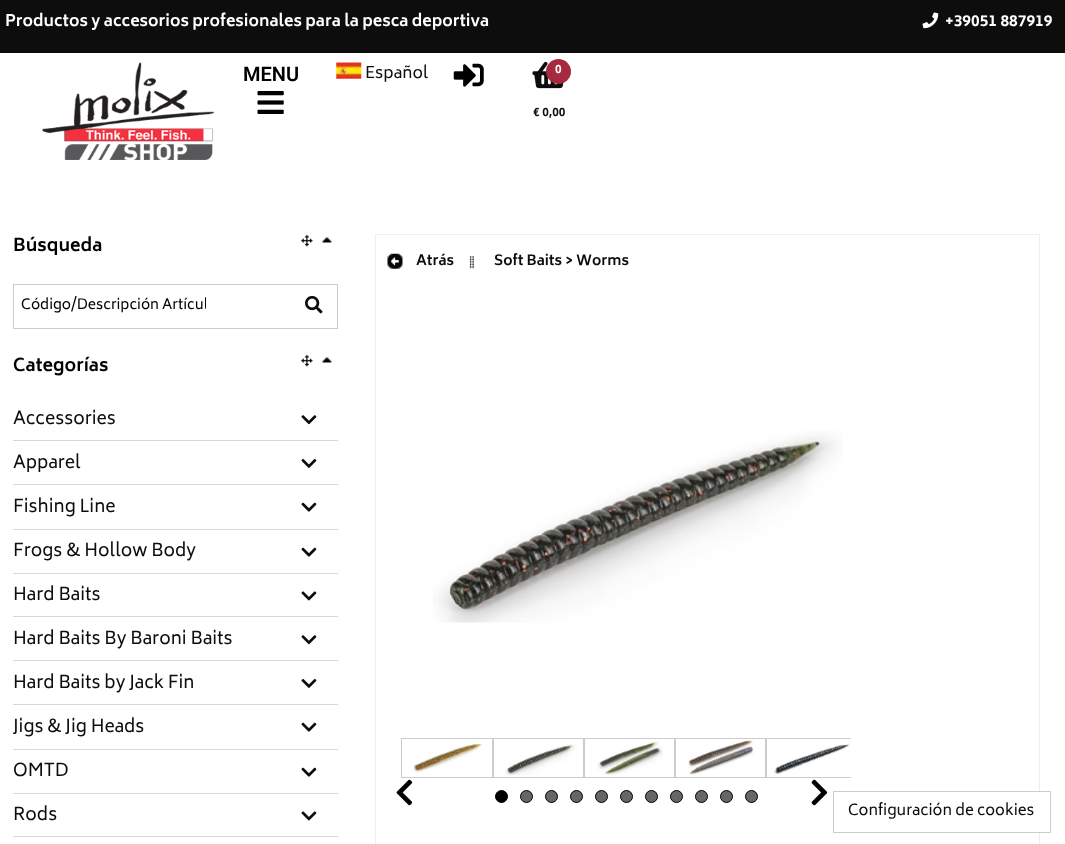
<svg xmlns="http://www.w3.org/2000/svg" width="1065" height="844">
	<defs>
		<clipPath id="clip1"><rect x="21" y="295" width="185" height="24" /></clipPath>
		<clipPath id="clip2"><rect x="401" y="738" width="450" height="40" /></clipPath>
	</defs>
	<rect width="100%" height="100%" fill="#FFFFFF" />
	<rect x="0" y="0" width="1065" height="53" fill="#0D0D0D" />
	<text x="5" y="26" font-family="Biryani" font-size="15.75" font-weight="700" fill="#FFFFFF">Productos y accesorios profesionales para la pesca deportiva</text>
	<image x="922" y="12" width="17" height="17" href="assets/img1.png" />
	<text x="945" y="26" font-family="Biryani" font-size="15.75" font-weight="700" fill="#FFFFFF">+39051 887919</text>
	<image x="42" y="62" width="172" height="98" href="assets/img2.png" />
	<text x="243" y="81" font-family="Roboto" font-size="20" font-weight="600" fill="#000000">MENU</text>
	<image x="257" y="91" width="27" height="23" href="assets/img3.png" />
	<image x="336" y="62" width="26" height="17" href="assets/img4.png" />
	<text x="365" y="78" font-family="Biryani" font-size="16" fill="#0D0D0D">Español</text>
	<image x="453" y="63" width="31" height="24" href="assets/img5.png" />
	<image x="532" y="61" width="32" height="28" href="assets/img6.png" />
	<circle cx="558.5" cy="71.5" r="12.5" fill="#A62940" />
	<text x="555" y="73" font-family="Biryani" font-size="12" font-weight="700" fill="#FFFFFF">0</text>
	<text x="533" y="116" font-family="Biryani" font-size="12" font-weight="700" fill="#0D0D0D">€ 0,00</text>
	<text x="13" y="251" font-family="Biryani" font-size="17.5" font-weight="700" fill="#000000">Búsqueda</text>
	<image x="301" y="234" width="12" height="13" href="assets/img7.png" />
	<image x="322" y="237" width="10" height="6" href="assets/img8.png" />
	<rect x="13.5" y="284.5" width="324" height="44" fill="none" stroke="#CCCCCC" />
	<g clip-path="url(#clip1)">
		<text x="21" y="309" font-family="Biryani" font-size="14" fill="#000000">Código/Descripción Artícul</text>
	</g>
	<image x="305" y="295" width="18" height="19" href="assets/img9.png" />
	<text x="13" y="371" font-family="Biryani" font-size="17.5" font-weight="700" fill="#000000">Categorías</text>
	<image x="301" y="354" width="12" height="13" href="assets/img7.png" />
	<image x="322" y="357" width="10" height="6" href="assets/img8.png" />
	<rect x="13" y="440" width="325" height="1" fill="#D8D8D8" />
	<text x="13" y="424" font-family="Biryani" font-size="17.5" fill="#0D0D0D">Accessories</text>
	<image x="301" y="415" width="16" height="10" href="assets/img10.png" />
	<rect x="13" y="484" width="325" height="1" fill="#D8D8D8" />
	<text x="13" y="468" font-family="Biryani" font-size="17.5" fill="#0D0D0D">Apparel</text>
	<image x="301" y="459" width="16" height="9" href="assets/img11.png" />
	<rect x="13" y="529" width="325" height="1" fill="#D8D8D8" />
	<text x="13" y="512" font-family="Biryani" font-size="17.5" fill="#0D0D0D">Fishing Line</text>
	<image x="301" y="502" width="16" height="10" href="assets/img12.png" />
	<rect x="13" y="573" width="325" height="1" fill="#D8D8D8" />
	<text x="13" y="556" font-family="Biryani" font-size="17.5" fill="#0D0D0D">Frogs &amp; Hollow Body</text>
	<image x="301" y="547" width="16" height="10" href="assets/img12.png" />
	<rect x="13" y="616" width="325" height="1" fill="#D8D8D8" />
	<text x="13" y="600" font-family="Biryani" font-size="17.5" fill="#0D0D0D">Hard Baits</text>
	<image x="301" y="591" width="16" height="10" href="assets/img13.png" />
	<rect x="13" y="660" width="325" height="1" fill="#D8D8D8" />
	<text x="13" y="644" font-family="Biryani" font-size="17.5" fill="#0D0D0D">Hard Baits By Baroni Baits</text>
	<image x="301" y="635" width="16" height="10" href="assets/img10.png" />
	<rect x="13" y="704" width="325" height="1" fill="#D8D8D8" />
	<text x="13" y="688" font-family="Biryani" font-size="17.5" fill="#0D0D0D">Hard Baits by Jack Fin</text>
	<image x="301" y="679" width="16" height="9" href="assets/img11.png" />
	<rect x="13" y="749" width="325" height="1" fill="#D8D8D8" />
	<text x="13" y="732" font-family="Biryani" font-size="17.5" fill="#0D0D0D">Jigs &amp; Jig Heads</text>
	<image x="301" y="722" width="16" height="10" href="assets/img12.png" />
	<rect x="13" y="793" width="325" height="1" fill="#D8D8D8" />
	<text x="13" y="776" font-family="Biryani" font-size="17.5" fill="#0D0D0D">OMTD</text>
	<image x="301" y="767" width="16" height="10" href="assets/img12.png" />
	<rect x="13" y="836" width="325" height="1" fill="#D8D8D8" />
	<text x="13" y="820" font-family="Biryani" font-size="17.5" fill="#0D0D0D">Rods</text>
	<image x="301" y="811" width="16" height="10" href="assets/img13.png" />
	<rect x="375.5" y="234.5" width="664" height="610" fill="none" stroke="#EEEEEE" />
	<image x="387" y="253" width="16" height="16" href="assets/img14.png" />
	<text x="416" y="265" font-family="Biryani" font-size="14" font-weight="700" fill="#0D0D0D">Atrás</text>
	<image x="469" y="256" width="5" height="13" href="assets/img15.png" />
	<text x="494" y="265" font-family="Biryani" font-size="14" font-weight="700" fill="#0D0D0D">Soft Baits &gt; Worms</text>
	<image x="433" y="430" width="410" height="193" href="assets/img16.png" />
	<rect x="401.5" y="738.5" width="91" height="39" fill="none" stroke="#CCCCCC" />
	<image x="413" y="743" width="69" height="30" href="assets/img17.png" />
	<rect x="493.5" y="738.5" width="90" height="39" fill="none" stroke="#CCCCCC" />
	<image x="505" y="744" width="71" height="32" href="assets/img18.png" />
	<rect x="584.5" y="738.5" width="90" height="39" fill="none" stroke="#CCCCCC" />
	<image x="596" y="741" width="67" height="34" href="assets/img19.png" />
	<rect x="675.5" y="738.5" width="90" height="39" fill="none" stroke="#CCCCCC" />
	<image x="687" y="740" width="67" height="35" href="assets/img20.png" />
	<g clip-path="url(#clip2)">
		<rect x="766.5" y="738.5" width="91" height="39" fill="none" stroke="#CCCCCC" />
	</g>
	<image x="774" y="744" width="76" height="31" href="assets/img21.png" />
	<image x="396" y="779" width="17" height="27" href="assets/img22.png" />
	<image x="811" y="779" width="17" height="27" href="assets/img23.png" />
	<circle cx="501.5" cy="796.5" r="6" fill="#000000" stroke="#000000" />
	<circle cx="526.5" cy="796.5" r="6" fill="#666666" stroke="#000000" />
	<circle cx="551.5" cy="796.5" r="6" fill="#666666" stroke="#000000" />
	<circle cx="576.5" cy="796.5" r="6" fill="#666666" stroke="#000000" />
	<circle cx="601.5" cy="796.5" r="6" fill="#666666" stroke="#000000" />
	<circle cx="626.5" cy="796.5" r="6" fill="#666666" stroke="#000000" />
	<circle cx="651.5" cy="796.5" r="6" fill="#666666" stroke="#000000" />
	<circle cx="676.5" cy="796.5" r="6" fill="#666666" stroke="#000000" />
	<circle cx="701.5" cy="796.5" r="6" fill="#666666" stroke="#000000" />
	<circle cx="726.5" cy="796.5" r="6" fill="#666666" stroke="#000000" />
	<circle cx="751.5" cy="796.5" r="6" fill="#666666" stroke="#000000" />
	<rect x="1039" y="792" width="1" height="40" fill="#FFFFFF" />
	<rect x="833.5" y="791.5" width="217" height="41" fill="none" stroke="#CCCCCC" />
	<text x="848" y="815" font-family="Biryani" font-size="15" fill="#0D0D0D">Configuración de cookies</text>
</svg>
